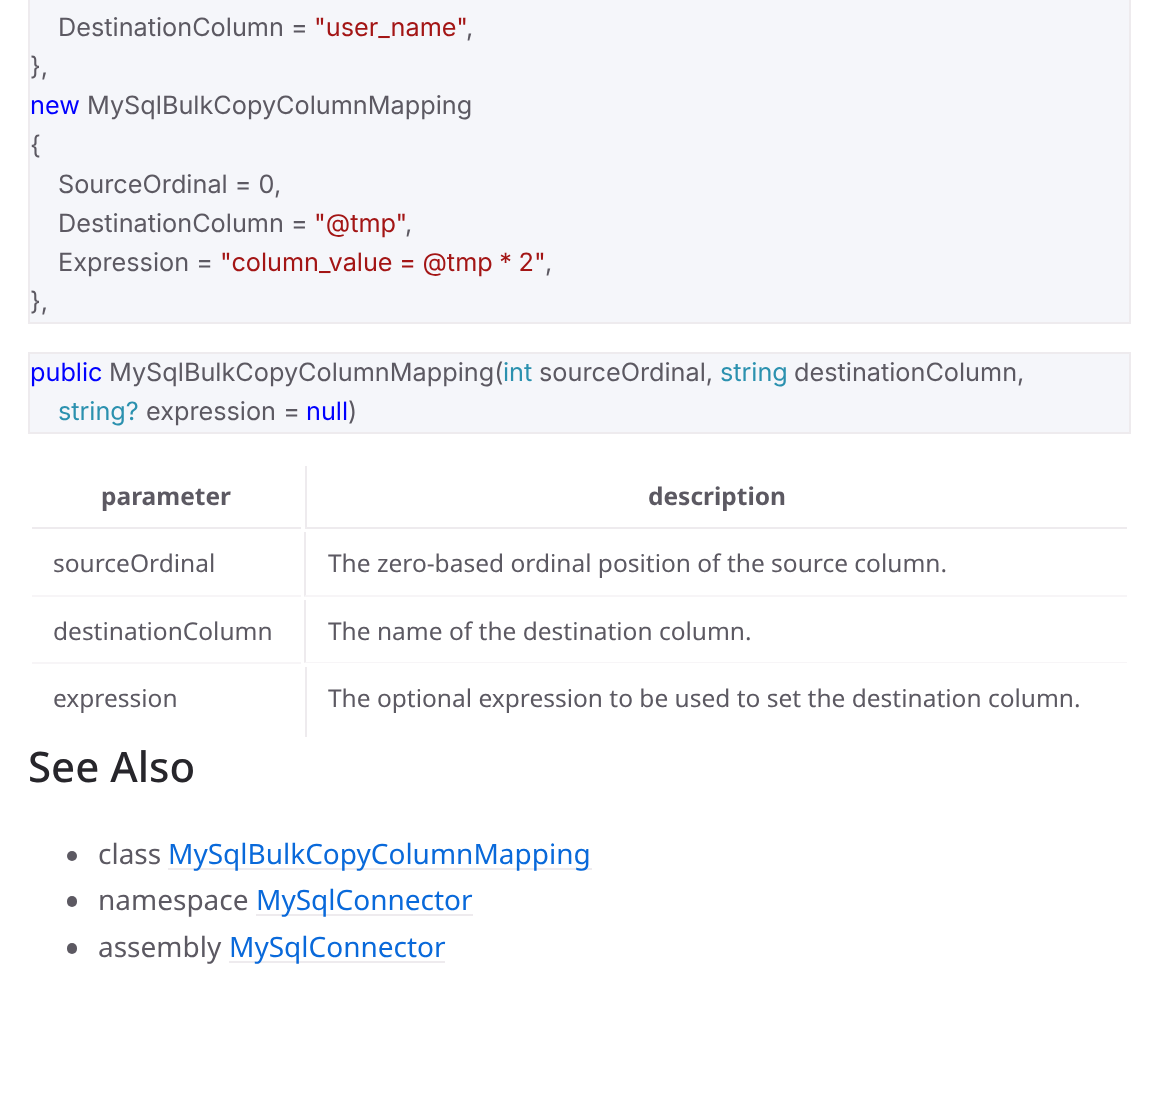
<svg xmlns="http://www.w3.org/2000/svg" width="1157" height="1106">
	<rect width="100%" height="100%" fill="#FFFFFF" />
	<rect x="29" y="-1" width="1101" height="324" fill="#F5F6FA" stroke="#EEEBEE" stroke-width="2" />
	<text x="58" y="36" font-family="Inter" font-size="25.25" fill="#5C5962">DestinationColumn =</text>
	<text x="314" y="36" font-family="Inter" font-size="25.25" fill="#A31515">"user_name"</text>
	<g font-family="Inter" font-size="25.25" fill="#5C5962">
		<text x="466" y="36">,</text>
		<text x="30" y="75">},</text>
	</g>
	<text x="30" y="114" font-family="Inter" font-size="25.25" fill="#0000FF">new</text>
	<g font-family="Inter" font-size="25.25" fill="#5C5962">
		<text x="87" y="114">MySqlBulkCopyColumnMapping</text>
		<text x="30" y="154">{</text>
		<text x="58" y="193">SourceOrdinal = 0</text>
		<text x="274" y="193">,</text>
		<text x="58" y="232">DestinationColumn =</text>
	</g>
	<text x="314" y="232" font-family="Inter" font-size="25.25" fill="#A31515">"@tmp"</text>
	<g font-family="Inter" font-size="25.25" fill="#5C5962">
		<text x="405" y="232">,</text>
		<text x="58" y="271">Expression =</text>
	</g>
	<text x="220" y="271" word-spacing="-0.5" font-family="Inter" font-size="25.25" fill="#A31515">"column_value = @tmp * 2"</text>
	<g font-family="Inter" font-size="25.25" fill="#5C5962">
		<text x="545" y="271">,</text>
		<text x="30" y="310">},</text>
	</g>
	<rect x="29" y="353" width="1101" height="80" fill="#F5F6FA" stroke="#EEEBEE" stroke-width="2" />
	<text x="30" y="381" font-family="Inter" font-size="25.25" fill="#0000FF">public</text>
	<text x="109" y="381" font-family="Inter" font-size="25.25" fill="#5C5962">MySqlBulkCopyColumnMapping(</text>
	<text x="503" y="381" font-family="Inter" font-size="25.25" fill="#2B91AF">int</text>
	<text x="539" y="381" font-family="Inter" font-size="25.25" fill="#5C5962">sourceOrdinal,</text>
	<text x="720" y="381" font-family="Inter" font-size="25.25" fill="#2B91AF">string</text>
	<text x="794" y="381" font-family="Inter" font-size="25.25" fill="#5C5962">destinationColumn,</text>
	<text x="58" y="420" font-family="Inter" font-size="25.25" fill="#2B91AF">string?</text>
	<text x="146" y="420" font-family="Inter" font-size="25.25" fill="#5C5962">expression =</text>
	<text x="306" y="420" font-family="Inter" font-size="25.25" fill="#0000FF">null</text>
	<text x="348" y="420" font-family="Inter" font-size="25.25" fill="#5C5962">)</text>
	<rect x="32" y="527" width="269" height="2" fill="#EEEBEE" />
	<text x="101" y="505" font-family="Noto Sans" font-size="24.5" font-weight="700" fill="#5C5962">parameter</text>
	<rect x="305" y="527" width="822" height="2" fill="#EEEBEE" />
	<rect x="305" y="466" width="2" height="63" fill="#EEEBEE" />
	<text x="648" y="505" font-family="Noto Sans" font-size="24.5" font-weight="700" fill="#5C5962">description</text>
	<rect x="32" y="595" width="269" height="2" fill="#F7F5F7" />
	<text x="53" y="572" font-family="Noto Sans" font-size="24.5" fill="#5C5962">sourceOrdinal</text>
	<path d="M1127 597H304L306 595H1127Z" fill="#F7F5F7" />
	<path d="M304 597V532H306V595Z" fill="#EEEBEE" />
	<text x="328" y="572" font-family="Noto Sans" font-size="24.5" fill="#5C5962">The zero-based ordinal position of the source column.</text>
	<rect x="32" y="662" width="269" height="2" fill="#F7F5F7" />
	<text x="53" y="640" font-family="Noto Sans" font-size="24.5" fill="#5C5962">destinationColumn</text>
	<path d="M1127 663H304L306 662H1127Z" fill="#F7F5F7" />
	<path d="M304 663V600H306V662Z" fill="#EEEBEE" />
	<g font-family="Noto Sans" font-size="24.5" fill="#5C5962">
		<text x="328" y="640">The name of the destination column.</text>
		<text x="53" y="707">expression</text>
	</g>
	<rect x="305" y="667" width="2" height="70" fill="#EEEBEE" />
	<text x="328" y="707" font-family="Noto Sans" font-size="24.5" fill="#5C5962">The optional expression to be used to set the destination column.</text>
	<text x="28" y="782" font-family="Noto Sans" font-size="42" font-weight="500" fill="#27262B">See Also</text>
	<circle cx="72" cy="856" r="5" fill="#5C5962" />
	<text x="98" y="864" font-family="Noto Sans" font-size="28" fill="#5C5962">class</text>
	<rect x="168" y="868" width="424" height="2" fill="#EEEBEE" />
	<text x="168" y="864" font-family="Noto Sans" font-size="28" fill="#0969DA">MySqlBulkCopyColumnMapping</text>
	<rect x="67" y="896" width="10" height="11" rx="5" fill="#5C5962" />
	<text x="98" y="910" font-family="Noto Sans" font-size="28" fill="#5C5962">namespace</text>
	<rect x="256" y="914" width="217" height="2" fill="#EEEBEE" />
	<text x="256" y="910" font-family="Noto Sans" font-size="28" fill="#0969DA">MySqlConnector</text>
	<rect x="67" y="943" width="10" height="11" rx="5" fill="#5C5962" />
	<text x="98" y="957" font-family="Noto Sans" font-size="28" fill="#5C5962">assembly</text>
	<rect x="229" y="961" width="216" height="2" fill="#EEEBEE" />
	<text x="229" y="957" font-family="Noto Sans" font-size="28" fill="#0969DA">MySqlConnector</text>
</svg>
